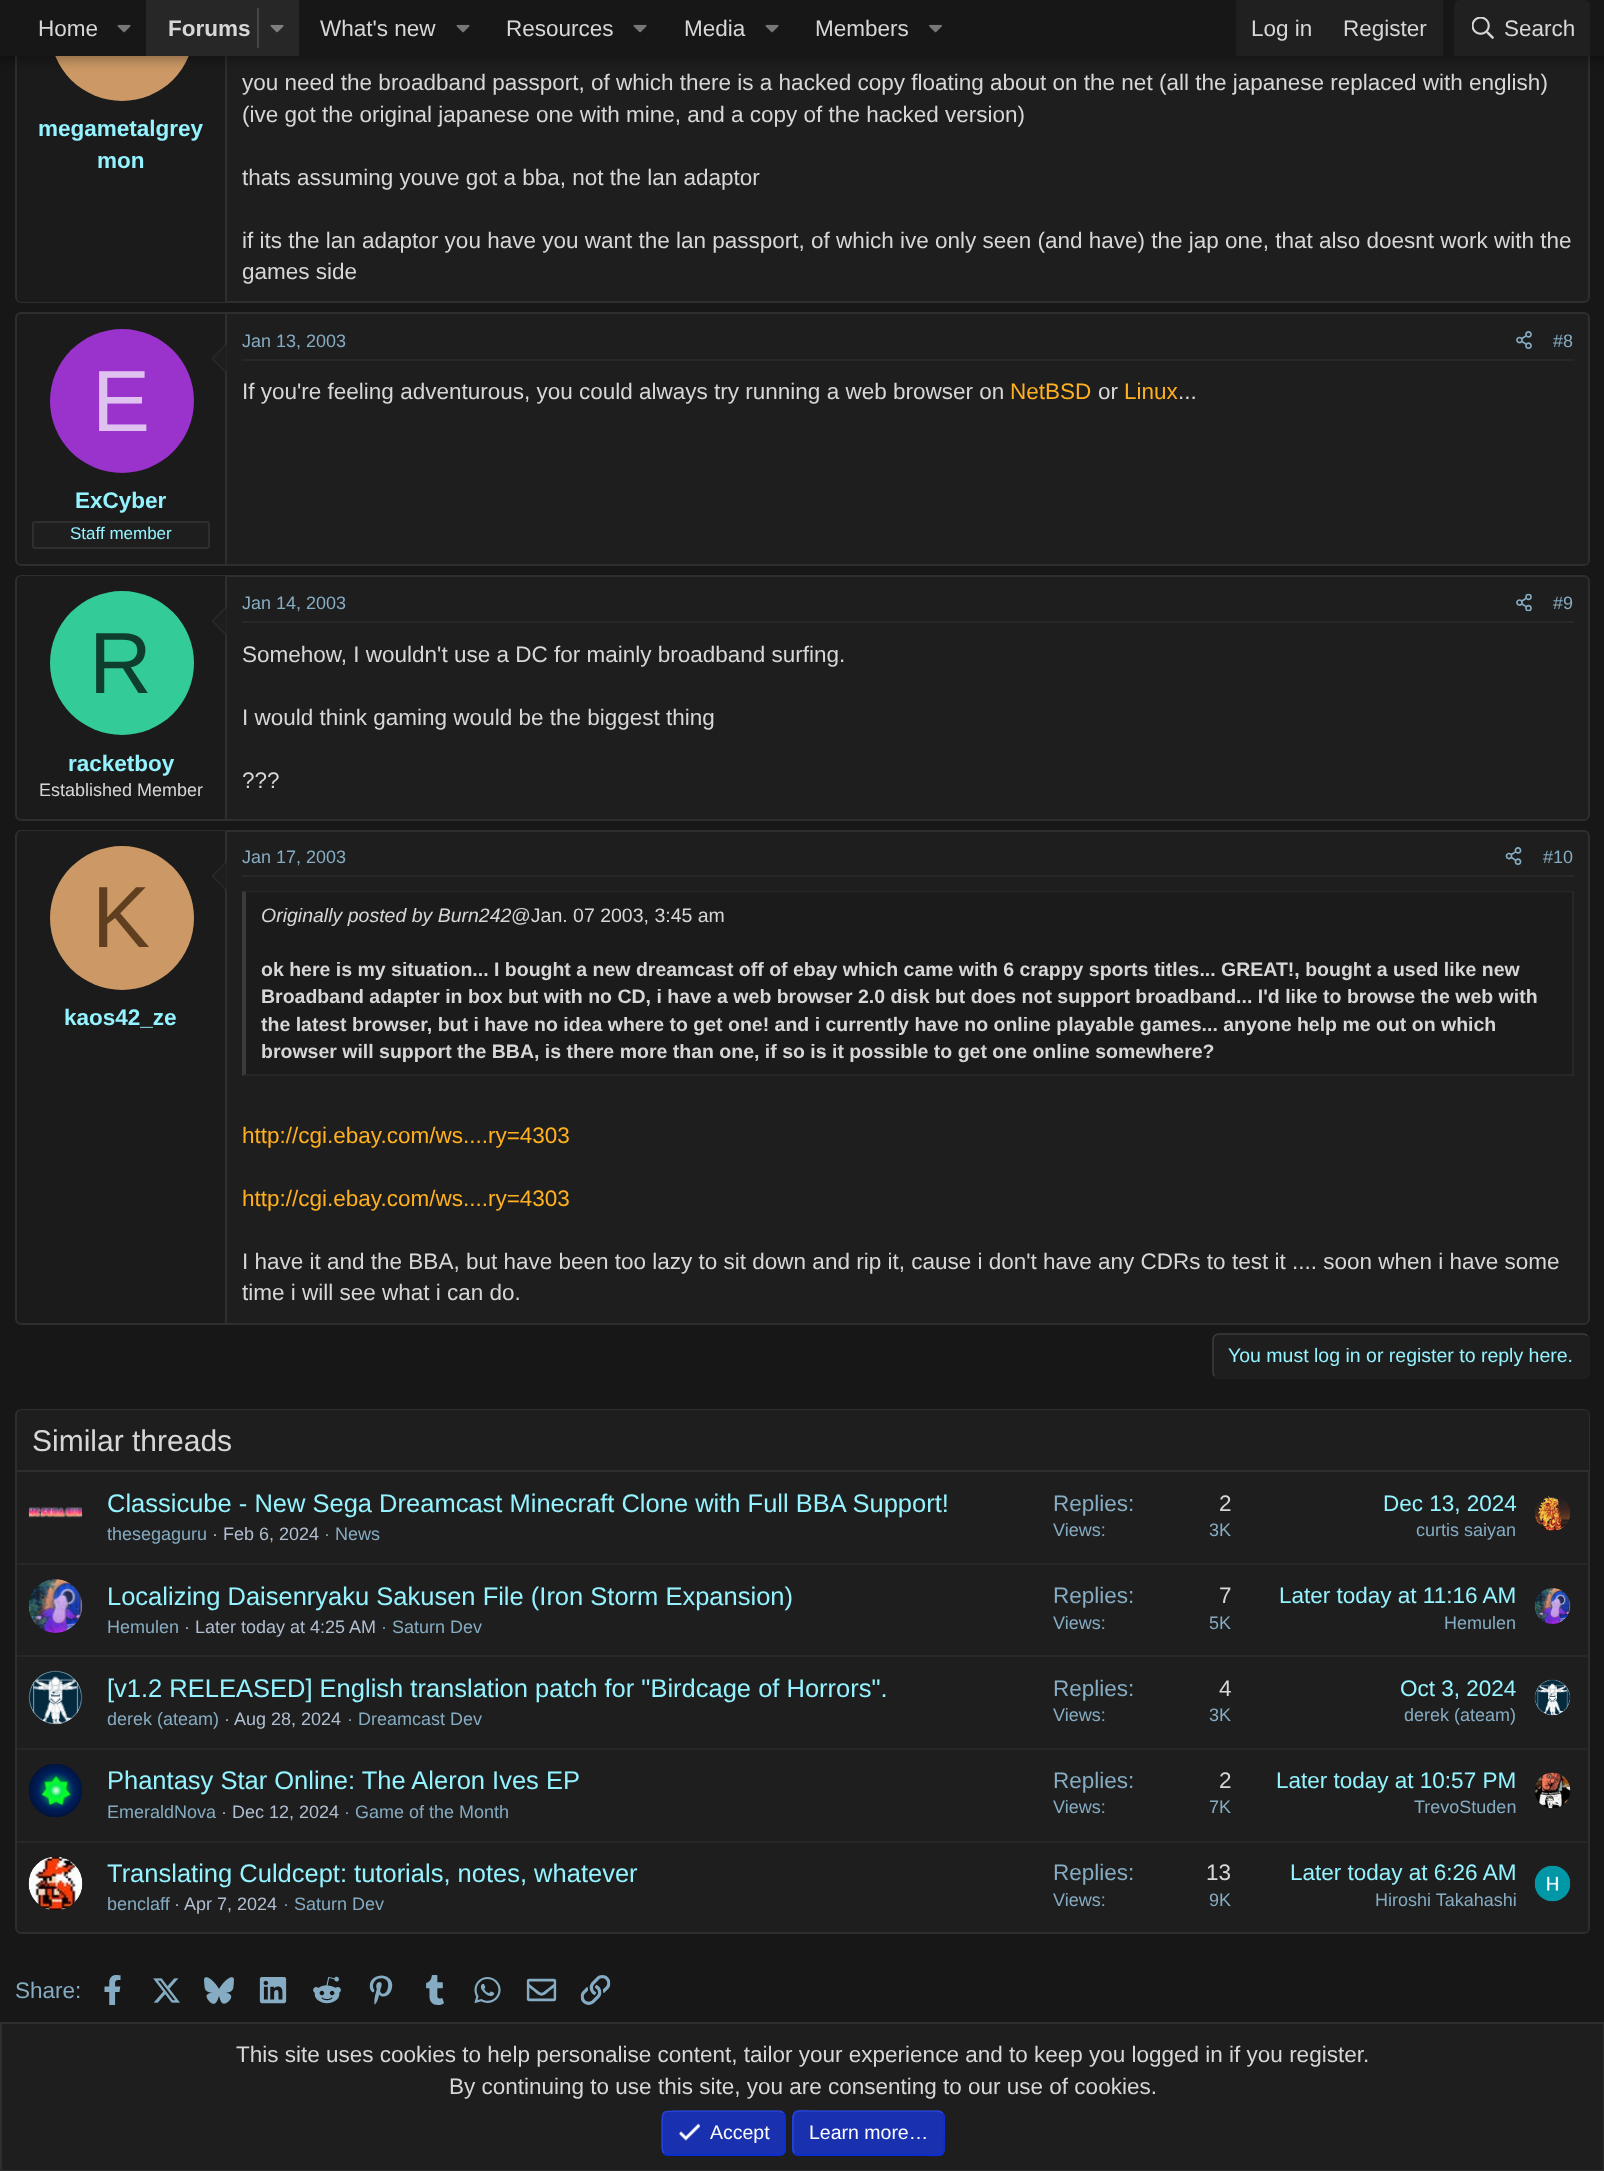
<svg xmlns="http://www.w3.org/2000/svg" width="1604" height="2171">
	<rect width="100%" height="100%" fill="#171717" />
	<rect x="16" y="-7" width="1573" height="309" rx="5" fill="#1F1E1E" stroke="#2E2E2E" stroke-width="2" />
	<path d="M22-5H227V302H22C19 302 17 300 17 297V0C17-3 19-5 22-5Z" fill="#1B1B1B" />
	<rect x="225" y="56" width="2" height="246" fill="#2E2E2E" />
	<circle cx="122" cy="29" r="72" fill="#CC9966" />
	<rect x="-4" y="-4" width="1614" height="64" fill="#000000" fill-opacity="0.3" filter="blur(6px)" />
	<rect x="0" y="0" width="1604" height="56" fill="#171717" />
	<text x="38" y="36" font-family="Liberation Sans" font-size="22.5" fill="#D7D7D7">Home</text>
	<image x="117" y="24" width="14" height="9" href="assets/img1.png" />
	<rect x="146" y="0" width="153" height="56" fill="#282727" />
	<text x="168" y="36" font-family="Liberation Sans" font-size="22.5" font-weight="700" fill="#D7D7D7">Forums</text>
	<rect x="257" y="8" width="2" height="40" fill="#474646" />
	<image x="270" y="24" width="14" height="9" href="assets/img2.png" />
	<text x="320" y="36" font-family="Liberation Sans" font-size="22.5" fill="#D7D7D7">What's new</text>
	<image x="456" y="24" width="14" height="9" href="assets/img1.png" />
	<text x="506" y="36" font-family="Liberation Sans" font-size="22.5" fill="#D7D7D7">Resources</text>
	<image x="633" y="24" width="14" height="9" href="assets/img1.png" />
	<text x="684" y="36" font-family="Liberation Sans" font-size="22.5" fill="#D7D7D7">Media</text>
	<image x="765" y="24" width="14" height="9" href="assets/img1.png" />
	<text x="815" y="36" font-family="Liberation Sans" font-size="22.5" fill="#D7D7D7">Members</text>
	<image x="929" y="24" width="13" height="9" href="assets/img3.png" />
	<rect x="1236" y="0" width="207" height="56" fill="#212020" />
	<g font-family="Liberation Sans" font-size="22.5" fill="#D7D7D7">
		<text x="1251" y="36">Log in</text>
		<text x="1343" y="36">Register</text>
	</g>
	<path d="M1460 0H1584C1587.5 0 1590 2.5 1590 6V56H1454V6C1454 2.5 1456.5 0 1460 0Z" fill="#212020" />
	<image x="1472" y="17" width="22" height="22" href="assets/img4.png" />
	<text x="1504" y="36" font-family="Liberation Sans" font-size="22.5" fill="#D7D7D7">Search</text>
	<g font-family="Liberation Sans" font-size="22.5" font-weight="700" fill="#94F3FF">
		<text x="38" y="136">megametalgrey</text>
		<text x="97" y="168">mon</text>
	</g>
	<g font-family="Liberation Sans" font-size="22.5" fill="#D7D7D7">
		<text x="242" y="90">you need the broadband passport, of which there is a hacked copy floating about on the net (all the japanese replaced with english)</text>
		<text x="242" y="122">(ive got the original japanese one with mine, and a copy of the hacked version)</text>
		<text x="242" y="185">thats assuming youve got a bba, not the lan adaptor</text>
		<text x="242" y="248">if its the lan adaptor you have you want the lan passport, of which ive only seen (and have) the jap one, that also doesnt work with the</text>
		<text x="242" y="279">games side</text>
	</g>
	<rect x="16" y="313" width="1573" height="252" rx="5" fill="#1F1E1E" stroke="#2E2E2E" stroke-width="2" />
	<path d="M22 314H227V564H22C19 564 17 562 17 559V319C17 316 19 314 22 314Z" fill="#1B1B1B" />
	<rect x="225" y="314" width="2" height="250" fill="#2E2E2E" />
	<path d="M226.5 343.5V373.5L211.5 358.5Z" fill="#2E2E2E" />
	<path d="M226.5 345V372L213 358.5Z" fill="#1F1E1E" />
	<circle cx="122" cy="401" r="72" fill="#9933CC" />
	<text x="92" y="431" font-family="Liberation Sans" font-size="87" fill="#E0C2F0">E</text>
	<text x="75" y="508" font-family="Liberation Sans" font-size="22.5" font-weight="700" fill="#94F3FF">ExCyber</text>
	<rect x="33" y="522" width="176" height="26" rx="2" fill="#1F1E1E" stroke="#2E2E2E" stroke-width="2" />
	<text x="70" y="539" font-family="Liberation Sans" font-size="17" fill="#94F3FF">Staff member</text>
	<rect x="242" y="359" width="1332" height="2" fill="#282727" />
	<text x="242" y="347" font-family="Liberation Sans" font-size="18" fill="#85ACC2">Jan 13, 2003</text>
	<image x="1516" y="331" width="16" height="18" href="assets/img5.png" />
	<text x="1553" y="347" font-family="Liberation Sans" font-size="18" fill="#85ACC2">#8</text>
	<text x="242" y="399" font-family="Liberation Sans" font-size="22.5" fill="#D7D7D7">If you're feeling adventurous, you could always try running a web browser on</text>
	<text x="1010" y="399" font-family="Liberation Sans" font-size="22.5" fill="#FFB01F">NetBSD</text>
	<text x="1098" y="399" font-family="Liberation Sans" font-size="22.5" fill="#D7D7D7">or</text>
	<text x="1124" y="399" font-family="Liberation Sans" font-size="22.5" fill="#FFB01F">Linux</text>
	<text x="1178" y="399" font-family="Liberation Sans" font-size="22.5" fill="#D7D7D7">...</text>
	<rect x="16" y="576" width="1573" height="244" rx="5" fill="#1F1E1E" stroke="#2E2E2E" stroke-width="2" />
	<path d="M22 576H227V819H22C19 819 17 817 17 814V581C17 578 19 576 22 576Z" fill="#1B1B1B" />
	<rect x="225" y="576" width="2" height="243" fill="#2E2E2E" />
	<path d="M226.5 606V636L211.5 621Z" fill="#2E2E2E" />
	<path d="M226.5 607.5V634.5L213 621Z" fill="#1F1E1E" />
	<circle cx="122" cy="663" r="72" fill="#33CC99" />
	<text x="89" y="693" font-family="Liberation Sans" font-size="87" fill="#0F3D2E">R</text>
	<text x="68" y="771" font-family="Liberation Sans" font-size="22.5" font-weight="700" fill="#94F3FF">racketboy</text>
	<text x="39" y="796" font-family="Liberation Sans" font-size="18" fill="#D7D7D7">Established Member</text>
	<rect x="242" y="621" width="1332" height="2" fill="#282727" />
	<text x="242" y="609" font-family="Liberation Sans" font-size="18" fill="#85ACC2">Jan 14, 2003</text>
	<image x="1516" y="593" width="16" height="19" href="assets/img6.png" />
	<text x="1553" y="609" font-family="Liberation Sans" font-size="18" fill="#85ACC2">#9</text>
	<g font-family="Liberation Sans" font-size="22.5" fill="#D7D7D7">
		<text x="242" y="662">Somehow, I wouldn't use a DC for mainly broadband surfing.</text>
		<text x="242" y="725">I would think gaming would be the biggest thing</text>
		<text x="242" y="788">???</text>
	</g>
	<rect x="16" y="831" width="1573" height="493" rx="5" fill="#1F1E1E" stroke="#2E2E2E" stroke-width="2" />
	<path d="M22 831H227V1323H22C19 1323 17 1321 17 1318V836C17 833 19 831 22 831Z" fill="#1B1B1B" />
	<rect x="225" y="831" width="2" height="492" fill="#2E2E2E" />
	<path d="M226.5 861V891L211.5 876Z" fill="#2E2E2E" />
	<path d="M226.5 862.5V889.5L213 876Z" fill="#1F1E1E" />
	<circle cx="122" cy="918" r="72" fill="#CC9966" />
	<text x="92" y="947" font-family="Liberation Sans" font-size="87" fill="#603F20">K</text>
	<text x="64" y="1025" font-family="Liberation Sans" font-size="22.5" font-weight="700" fill="#94F3FF">kaos42_ze</text>
	<rect x="242" y="875" width="1332" height="2" fill="#282727" />
	<text x="242" y="863" font-family="Liberation Sans" font-size="18" fill="#85ACC2">Jan 17, 2003</text>
	<image x="1505" y="847" width="17" height="18" href="assets/img7.png" />
	<text x="1543" y="863" font-family="Liberation Sans" font-size="18" fill="#85ACC2">#10</text>
	<rect x="246" y="893" width="1326" height="181" fill="#1B1B1B" />
	<path d="M242 891H1574L1572 892H246Z" fill="#282727" />
	<rect x="1572" y="891" width="2" height="185" fill="#282727" />
	<path d="M1574 1076H242L246 1074H1572Z" fill="#282727" />
	<path d="M242 1076V891L246 892V1074Z" fill="#3B3B3B" />
	<text x="261" y="922" font-family="Liberation Sans" font-size="19.5" font-style="italic" fill="#D7D7D7">Originally posted by Burn242</text>
	<text x="511" y="922" font-family="Liberation Sans" font-size="19.5" fill="#D7D7D7">@Jan. 07 2003, 3:45 am</text>
	<g font-family="Liberation Sans" font-size="19.5" font-weight="700" fill="#D7D7D7">
		<text x="261" y="976">ok here is my situation... I bought a new dreamcast off of ebay which came with 6 crappy sports titles... GREAT!, bought a used like new</text>
		<text x="261" y="1003">Broadband adapter in box but with no CD, i have a web browser 2.0 disk but does not support broadband... I'd like to browse the web with</text>
		<text x="261" y="1031">the latest browser, but i have no idea where to get one! and i currently have no online playable games... anyone help me out on which</text>
		<text x="261" y="1058">browser will support the BBA, is there more than one, if so is it possible to get one online somewhere?</text>
	</g>
	<g font-family="Liberation Sans" font-size="22.5" fill="#FFB01F">
		<text x="242" y="1143">http://cgi.ebay.com/ws....ry=4303</text>
		<text x="242" y="1206">http://cgi.ebay.com/ws....ry=4303</text>
	</g>
	<g font-family="Liberation Sans" font-size="22.5" fill="#D7D7D7">
		<text x="242" y="1269">I have it and the BBA, but have been too lazy to sit down and rip it, cause i don't have any CDRs to test it .... soon when i have some</text>
		<text x="242" y="1300">time i will see what i can do.</text>
	</g>
	<rect x="1212" y="1334" width="378" height="45" rx="6" fill="#1F1E1E" />
	<path d="M1587.5 1336C1588.5 1337 1589 1338 1589 1339.5V1372.5C1589 1374 1588.5 1375 1587.5 1376C1586.5 1377 1585.5 1378 1584 1378H1218C1216.5 1378 1215.5 1377 1214.5 1376" fill="none" stroke="#212121" stroke-width="1.5" />
	<path d="M1214.5 1376C1213.5 1375 1213 1374 1213 1372.5V1339.5C1213 1338 1213.5 1337 1214.5 1336C1215.5 1335 1216.5 1334 1218 1334H1584C1585.5 1334 1586.5 1335 1587.5 1336" fill="none" stroke="#3B3B3B" stroke-width="1.5" />
	<text x="1228" y="1362" font-family="Liberation Sans" font-size="19.5" fill="#94F3FF">You must log in or register to reply here.</text>
	<rect x="16" y="1410" width="1573" height="523" rx="5" fill="#1F1E1E" stroke="#2E2E2E" stroke-width="2" />
	<path d="M22 1410H1584C1587 1410 1589 1412 1589 1415V1472H17V1415C17 1412 19 1410 22 1410Z" fill="#1F1E1E" />
	<rect x="17" y="1470" width="1572" height="2" fill="#2E2E2E" />
	<text x="32" y="1451" font-family="Liberation Sans" font-size="30" fill="#D7D7D7">Similar threads</text>
	<image x="28" y="1507" width="55" height="11" href="assets/img8.png" />
	<text x="107" y="1512" font-family="Liberation Sans" font-size="25.5" fill="#94F3FF">Classicube - New Sega Dreamcast Minecraft Clone with Full BBA Support!</text>
	<text x="107" y="1540" font-family="Liberation Sans" font-size="18" fill="#85ACC2">thesegaguru</text>
	<text x="212" y="1540" font-family="Liberation Sans" font-size="18" fill="#B0BED1">· Feb 6, 2024</text>
	<text x="324" y="1540" font-family="Liberation Sans" font-size="18" fill="#85ACC2">· News</text>
	<text x="1053" y="1511" font-family="Liberation Sans" font-size="22.5" fill="#85ACC2">Replies:</text>
	<text x="1219" y="1511" font-family="Liberation Sans" font-size="22.5" fill="#D7D7D7">2</text>
	<g font-family="Liberation Sans" font-size="18" fill="#85ACC2">
		<text x="1053" y="1536">Views:</text>
		<text x="1209" y="1536">3K</text>
	</g>
	<text x="1383" y="1511" font-family="Liberation Sans" font-size="22.5" fill="#94F3FF">Dec 13, 2024</text>
	<text x="1416" y="1536" font-family="Liberation Sans" font-size="18" fill="#85ACC2">curtis saiyan</text>
	<image x="1535" y="1496" width="36" height="35" href="assets/img9.png" />
	<rect x="17" y="1563" width="1572" height="2" fill="#282727" />
	<image x="28" y="1579" width="55" height="54" href="assets/img10.png" />
	<text x="107" y="1605" font-family="Liberation Sans" font-size="25.5" fill="#94F3FF">Localizing Daisenryaku Sakusen File (Iron Storm Expansion)</text>
	<text x="107" y="1633" font-family="Liberation Sans" font-size="18" fill="#85ACC2">Hemulen</text>
	<text x="184" y="1633" font-family="Liberation Sans" font-size="18" fill="#B0BED1">· Later today at 4:25 AM</text>
	<text x="381" y="1633" font-family="Liberation Sans" font-size="18" fill="#85ACC2">· Saturn Dev</text>
	<text x="1053" y="1603" font-family="Liberation Sans" font-size="22.5" fill="#85ACC2">Replies:</text>
	<text x="1219" y="1603" font-family="Liberation Sans" font-size="22.5" fill="#D7D7D7">7</text>
	<g font-family="Liberation Sans" font-size="18" fill="#85ACC2">
		<text x="1053" y="1629">Views:</text>
		<text x="1209" y="1629">5K</text>
	</g>
	<text x="1279" y="1603" font-family="Liberation Sans" font-size="22.5" fill="#94F3FF">Later today at 11:16 AM</text>
	<text x="1444" y="1629" font-family="Liberation Sans" font-size="18" fill="#85ACC2">Hemulen</text>
	<image x="1534" y="1588" width="37" height="36" href="assets/img11.png" />
	<rect x="17" y="1655" width="1572" height="2" fill="#282727" />
	<image x="28" y="1670" width="55" height="55" href="assets/img12.png" />
	<text x="107" y="1697" font-family="Liberation Sans" font-size="25.5" fill="#94F3FF">[v1.2 RELEASED] English translation patch for "Birdcage of Horrors".</text>
	<text x="107" y="1725" font-family="Liberation Sans" font-size="18" fill="#85ACC2">derek (ateam)</text>
	<text x="224" y="1725" font-family="Liberation Sans" font-size="18" fill="#B0BED1">· Aug 28, 2024</text>
	<text x="347" y="1725" font-family="Liberation Sans" font-size="18" fill="#85ACC2">· Dreamcast Dev</text>
	<text x="1053" y="1696" font-family="Liberation Sans" font-size="22.5" fill="#85ACC2">Replies:</text>
	<text x="1219" y="1696" font-family="Liberation Sans" font-size="22.5" fill="#D7D7D7">4</text>
	<g font-family="Liberation Sans" font-size="18" fill="#85ACC2">
		<text x="1053" y="1721">Views:</text>
		<text x="1209" y="1721">3K</text>
	</g>
	<text x="1400" y="1696" font-family="Liberation Sans" font-size="22.5" fill="#94F3FF">Oct 3, 2024</text>
	<text x="1404" y="1721" font-family="Liberation Sans" font-size="18" fill="#85ACC2">derek (ateam)</text>
	<image x="1534" y="1679" width="37" height="37" href="assets/img13.png" />
	<rect x="17" y="1748" width="1572" height="2" fill="#282727" />
	<image x="29" y="1764" width="54" height="53" href="assets/img14.png" />
	<text x="107" y="1789" font-family="Liberation Sans" font-size="25.5" fill="#94F3FF">Phantasy Star Online: The Aleron Ives EP</text>
	<text x="107" y="1818" font-family="Liberation Sans" font-size="18" fill="#85ACC2">EmeraldNova</text>
	<text x="221" y="1818" font-family="Liberation Sans" font-size="18" fill="#B0BED1">· Dec 12, 2024</text>
	<text x="344" y="1818" font-family="Liberation Sans" font-size="18" fill="#85ACC2">· Game of the Month</text>
	<text x="1053" y="1788" font-family="Liberation Sans" font-size="22.5" fill="#85ACC2">Replies:</text>
	<text x="1219" y="1788" font-family="Liberation Sans" font-size="22.5" fill="#D7D7D7">2</text>
	<g font-family="Liberation Sans" font-size="18" fill="#85ACC2">
		<text x="1053" y="1813">Views:</text>
		<text x="1209" y="1813">7K</text>
	</g>
	<text x="1276" y="1788" font-family="Liberation Sans" font-size="22.5" fill="#94F3FF">Later today at 10:57 PM</text>
	<text x="1414" y="1813" font-family="Liberation Sans" font-size="18" fill="#85ACC2">TrevoStuden</text>
	<image x="1535" y="1772" width="36" height="37" href="assets/img15.png" />
	<rect x="17" y="1841" width="1572" height="2" fill="#282727" />
	<image x="28" y="1857" width="55" height="53" href="assets/img16.png" />
	<text x="107" y="1882" font-family="Liberation Sans" font-size="25.5" fill="#94F3FF">Translating Culdcept: tutorials, notes, whatever</text>
	<text x="107" y="1910" font-family="Liberation Sans" font-size="18" fill="#85ACC2">benclaff</text>
	<text x="174" y="1910" font-family="Liberation Sans" font-size="18" fill="#B0BED1">· Apr 7, 2024</text>
	<text x="283" y="1910" font-family="Liberation Sans" font-size="18" fill="#85ACC2">· Saturn Dev</text>
	<text x="1053" y="1880" font-family="Liberation Sans" font-size="22.5" fill="#85ACC2">Replies:</text>
	<text x="1206" y="1880" font-family="Liberation Sans" font-size="22.5" fill="#D7D7D7">13</text>
	<g font-family="Liberation Sans" font-size="18" fill="#85ACC2">
		<text x="1053" y="1906">Views:</text>
		<text x="1209" y="1906">9K</text>
	</g>
	<text x="1290" y="1880" font-family="Liberation Sans" font-size="22.5" fill="#94F3FF">Later today at 6:26 AM</text>
	<text x="1375" y="1906" font-family="Liberation Sans" font-size="18" fill="#85ACC2">Hiroshi Takahashi</text>
	<image x="1534" y="1865" width="37" height="37" href="assets/img17.png" />
	<text x="15" y="1998" font-family="Liberation Sans" font-size="22.5" fill="#85ACC2">Share:</text>
	<image x="104" y="1975" width="17" height="30" href="assets/img18.png" />
	<image x="153" y="1978" width="27" height="25" href="assets/img19.png" />
	<image x="204" y="1977" width="30" height="27" href="assets/img20.png" />
	<image x="259" y="1977" width="28" height="27" href="assets/img21.png" />
	<image x="313" y="1976" width="28" height="28" href="assets/img22.png" />
	<image x="369" y="1975" width="24" height="30" href="assets/img23.png" />
	<image x="426" y="1975" width="18" height="30" href="assets/img24.png" />
	<image x="474" y="1977" width="27" height="27" href="assets/img25.png" />
	<image x="526" y="1978" width="31" height="24" href="assets/img26.png" />
	<image x="580" y="1975" width="31" height="30" href="assets/img27.png" />
	<rect x="1" y="2023" width="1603" height="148" fill="#1F1E1E" stroke="#2E2E2E" stroke-width="2" />
	<g font-family="Liberation Sans" font-size="22.5" fill="#D7D7D7">
		<text x="236" y="2062">This site uses cookies to help personalise content, tailor your experience and to keep you logged in if you register.</text>
		<text x="449" y="2094">By continuing to use this site, you are consenting to our use of cookies.</text>
	</g>
	<rect x="662" y="2111" width="124" height="45" rx="6" fill="#1931AF" />
	<path d="M783.5 2113C786 2115 785 2119 785 2122V2133C785 2158.5 788.5 2155 761 2155H667.5C666 2154.5 665 2154 664 2153" fill="none" stroke="#022AF6" stroke-opacity="0.65" stroke-width="1.5" />
	<path d="M664 2153C661.5 2151 662 2147 662 2144V2133C662 2107.5 659 2111 686 2111H780C781.5 2111.5 782.5 2112 783.5 2113" fill="none" stroke="#2E50FD" stroke-opacity="0.65" stroke-width="1.5" />
	<image x="679" y="2123" width="21" height="18" href="assets/img28.png" />
	<text x="710" y="2139" font-family="Liberation Sans" font-size="19.5" fill="#FFFFFF">Accept</text>
	<rect x="792" y="2111" width="153" height="45" rx="6" fill="#1931AF" />
	<path d="M942.5 2113C945 2115 944 2119 944 2122V2133C944 2160.5 947 2155 915.5 2155H798C796.5 2154.5 795.5 2154 794.5 2153" fill="none" stroke="#022AF6" stroke-opacity="0.65" stroke-width="1.5" />
	<path d="M794.5 2153C792 2151 793 2147 793 2144V2133C793 2105.5 790 2111 821.5 2111H939C940.5 2111.5 941.5 2112 942.5 2113" fill="none" stroke="#2E50FD" stroke-opacity="0.65" stroke-width="1.5" />
	<text x="809" y="2139" font-family="Liberation Sans" font-size="19.5" fill="#FFFFFF">Learn more…</text>
</svg>
